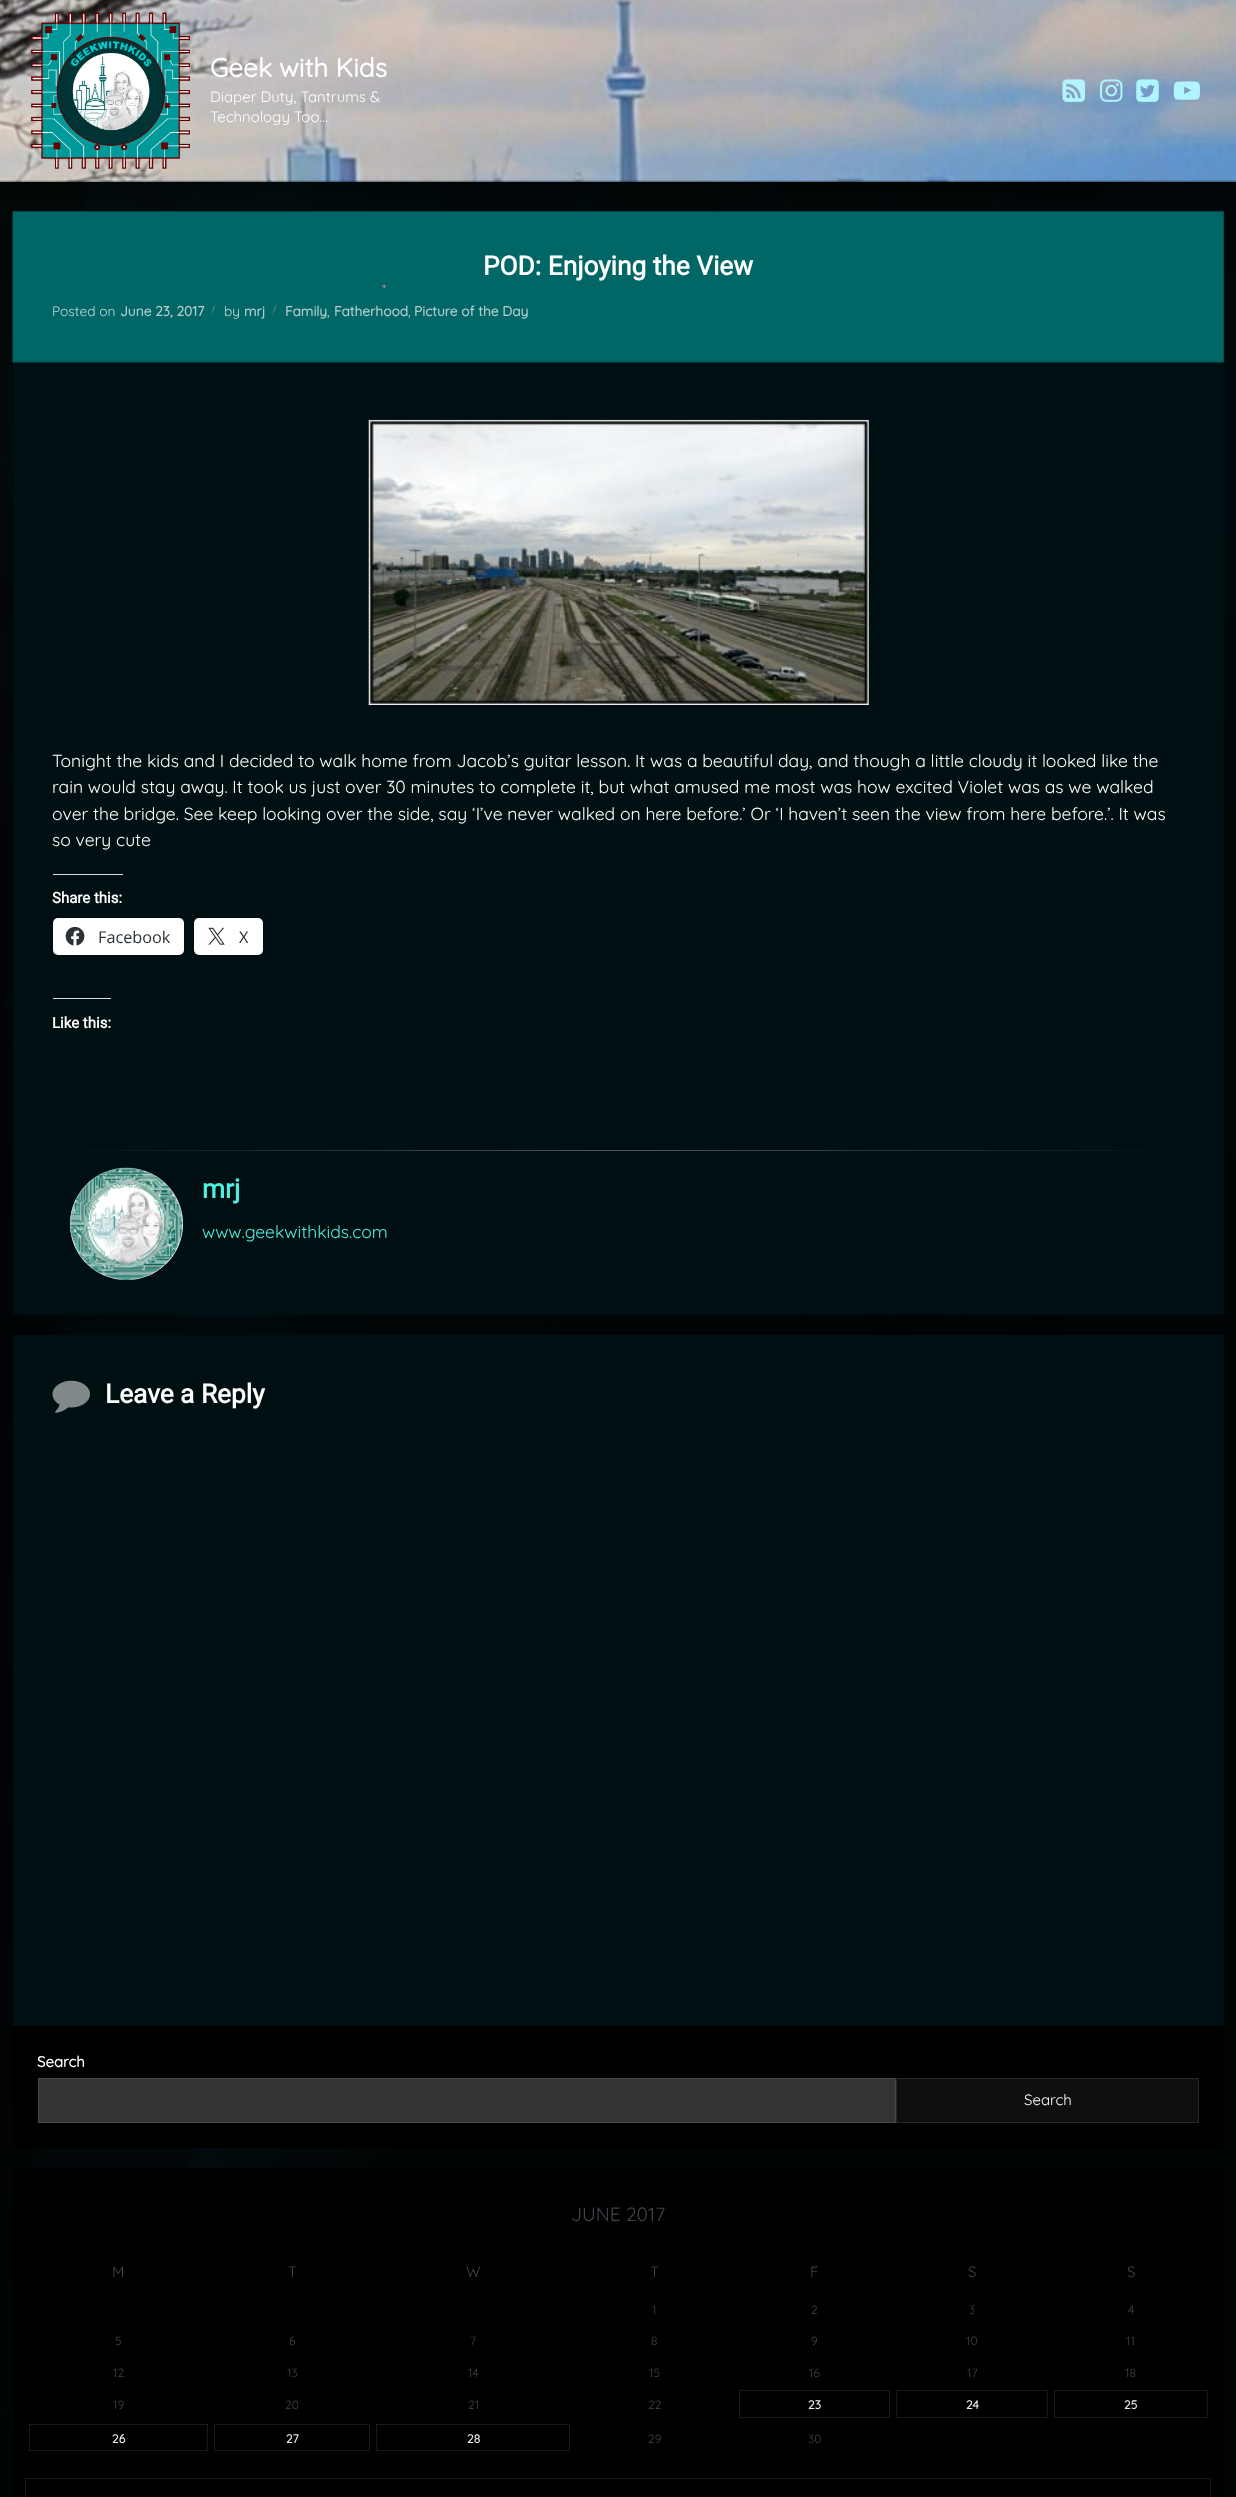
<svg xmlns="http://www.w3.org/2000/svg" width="1236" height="2497">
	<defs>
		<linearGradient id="g1" gradientUnits="userSpaceOnUse" x1="216" y1="303" x2="211" y2="316"><stop offset="0" stop-color="#006666" /><stop offset="0.5" stop-color="#458F8F" /><stop offset="1" stop-color="#006666" /></linearGradient>
		<linearGradient id="g2" gradientUnits="userSpaceOnUse" x1="277" y1="303" x2="272" y2="316"><stop offset="0" stop-color="#006666" /><stop offset="0.5" stop-color="#458F8F" /><stop offset="1" stop-color="#006666" /></linearGradient>
		<linearGradient id="g3" gradientUnits="userSpaceOnUse" x1="53" y1="1151" x2="1184" y2="1151"><stop offset="0" stop-color="#001012" /><stop offset="0.5" stop-color="#4D5859" /><stop offset="1" stop-color="#001012" /></linearGradient>
	</defs>
	<rect width="100%" height="100%" fill="#FFFFFF" />
	<image x="0" y="180" width="1236" height="2317" href="assets/img13.png" />
	<rect x="0" y="6" width="1236" height="182" fill="#000000" fill-opacity="0.25" filter="blur(6px)" />
	<image x="0" y="0" width="1236" height="182" href="assets/img1.png" />
	<image x="31" y="12" width="159" height="157" href="assets/img2.png" />
	<text x="210" y="77" font-family="Quicksand" font-size="26.25" font-weight="700" fill="#FEFEFE">Geek with Kids</text>
	<g font-family="Quicksand" font-size="15" font-weight="300" fill="#FEFEFE">
		<text x="210" y="102">Diaper Duty, Tantrums &amp;</text>
		<text x="210" y="122">Technology Too…</text>
	</g>
	<image x="1062" y="79" width="23" height="23" href="assets/img3.png" />
	<image x="1100" y="79" width="23" height="23" href="assets/img4.png" />
	<image x="1136" y="79" width="23" height="23" href="assets/img5.png" />
	<image x="1173" y="81" width="27" height="19" href="assets/img6.png" />
	<rect x="13" y="211" width="1211" height="1104" fill="#001012" />
	<image x="11" y="210" width="1214" height="153" href="assets/img7.png" />
	<text x="483" y="275" font-family="Roboto" font-size="26.25" font-weight="700" fill="#FEFEFE">POD: Enjoying the View</text>
	<text x="52" y="316" font-family="Quicksand" font-size="13.75" font-weight="300" fill="#BFD9D9">Posted on</text>
	<text x="120" y="316" font-family="Quicksand" font-size="13.75" font-weight="700" fill="#B3CDCD">June 23, 2017</text>
	<path d="M215 303L216 303.5L211.5 316H210Z" fill="url(#g1)" />
	<text x="224" y="316" font-family="Quicksand" font-size="13.75" font-weight="300" fill="#BFD9D9">by</text>
	<text x="244" y="316" font-family="Quicksand" font-size="13.75" font-weight="700" fill="#B3CDCD">mrj</text>
	<path d="M276 303L277.5 303.5L272.5 316H271.5Z" fill="url(#g2)" />
	<text x="285" y="316" font-family="Quicksand" font-size="13.75" font-weight="700" fill="#B3CDCD">Family</text>
	<text x="327" y="316" font-family="Quicksand" font-size="13.75" font-weight="300" fill="#BFD9D9">,</text>
	<text x="334" y="316" font-family="Quicksand" font-size="13.75" font-weight="700" fill="#B3CDCD">Fatherhood</text>
	<text x="408" y="316" font-family="Quicksand" font-size="13.75" font-weight="300" fill="#BFD9D9">,</text>
	<text x="414" y="316" font-family="Quicksand" font-size="13.75" font-weight="700" fill="#B3CDCD">Picture of the Day</text>
	<image x="368" y="419" width="501" height="286" href="assets/img8.png" />
	<g font-family="Quicksand" font-size="17.5" font-weight="300" fill="#FEFEFE">
		<text x="52" y="767">Tonight the kids and I decided to walk home from Jacob’s guitar lesson. It was a beautiful day, and though a little cloudy it looked like the</text>
		<text x="52" y="793">rain would stay away. It took us just over 30 minutes to complete it, but what amused me most was how excited Violet was as we walked</text>
		<text x="52" y="820">over the bridge. See keep looking over the side, say ‘I’ve never walked on here before.’ Or ‘I haven’t seen the view from here before.’. It was</text>
		<text x="52" y="846">so very cute</text>
	</g>
	<rect x="53" y="874" width="70" height="1" fill="#DCDCDE" />
	<text x="52" y="903" font-family="Roboto" font-size="15" font-weight="700" fill="#FEFEFE">Share this:</text>
	<rect x="53" y="918" width="131" height="37" rx="5" fill="#FFFFFF" />
	<image x="65" y="926" width="20" height="20" href="assets/img9.png" />
	<text x="98" y="943" font-family="Open Sans" font-size="16.25" fill="#2C3338">Facebook</text>
	<rect x="194" y="918" width="69" height="37" rx="5" fill="#FFFFFF" />
	<image x="208" y="927" width="17" height="18" href="assets/img10.png" />
	<text x="239" y="943" font-family="Open Sans" font-size="16.25" fill="#2C3338">X</text>
	<rect x="53" y="998" width="58" height="1" fill="#DCDCDE" />
	<text x="52" y="1028" font-family="Roboto" font-size="15" font-weight="700" fill="#FEFEFE">Like this:</text>
	<rect x="71" y="1150" width="1095" height="1" fill="url(#g3)" />
	<rect x="70" y="1168" width="113" height="112" rx="56" fill="#FFFFFF" />
	<image x="70" y="1167" width="113" height="113" href="assets/img11.png" />
	<text x="202" y="1198" font-family="Roboto" font-size="26.25" font-weight="700" fill="#51EDDD">mrj</text>
	<text x="202" y="1238" font-family="Quicksand" font-size="17.5" font-weight="300" fill="#51EDDD">www.geekwithkids.com</text>
	<rect x="13" y="1335" width="1211" height="691" fill="#001012" />
	<image x="52" y="1380" width="38" height="33" href="assets/img12.png" />
	<text x="105" y="1403" font-family="Roboto" font-size="26.25" font-weight="700" fill="#FEFEFE">Leave a Reply</text>
	<rect x="13" y="2026" width="1211" height="122" fill="#000000" fill-opacity="0.95" />
	<text x="37" y="2067" font-family="Quicksand" font-size="15" font-weight="700" fill="#FEFEFE">Search</text>
	<rect x="38.5" y="2078.5" width="857" height="44" fill="#333333" stroke="#474747" />
	<rect x="896.5" y="2078.5" width="302" height="44" fill="#0F0F0F" stroke="#272727" />
	<text x="1024" y="2105" font-family="Quicksand" font-size="15" font-weight="300" fill="#FEFEFE">Search</text>
	<rect x="13" y="2168" width="1211" height="329" fill="#000000" fill-opacity="0.95" />
	<text x="571" y="2221" font-family="Quicksand" font-size="19.25" font-weight="300" fill="#40464D">JUNE 2017</text>
	<g font-family="Quicksand" font-size="15" font-weight="300" fill="#40464D">
		<text x="112" y="2277">M</text>
		<text x="288" y="2277">T</text>
		<text x="466" y="2277">W</text>
		<text x="650" y="2277">T</text>
		<text x="810" y="2277">F</text>
		<text x="968" y="2277">S</text>
		<text x="1127" y="2277">S</text>
	</g>
	<g font-family="Quicksand" font-size="12" font-weight="300" fill="#40464D">
		<text x="652" y="2314">1</text>
		<text x="811" y="2314">2</text>
		<text x="969" y="2314">3</text>
		<text x="1128" y="2314">4</text>
		<text x="115" y="2345">5</text>
		<text x="289" y="2345">6</text>
		<text x="470" y="2345">7</text>
		<text x="651" y="2345">8</text>
		<text x="811" y="2345">9</text>
		<text x="966" y="2345">10</text>
		<text x="1126" y="2345">11</text>
		<text x="113" y="2377">12</text>
		<text x="287" y="2377">13</text>
		<text x="468" y="2377">14</text>
		<text x="649" y="2377">15</text>
		<text x="809" y="2377">16</text>
		<text x="967" y="2377">17</text>
		<text x="1125" y="2377">18</text>
		<text x="113" y="2409">19</text>
		<text x="285" y="2409">20</text>
		<text x="468" y="2409">21</text>
		<text x="648" y="2409">22</text>
	</g>
	<rect x="739.5" y="2390.5" width="150" height="27" fill="none" stroke="#1A1A1A" />
	<text x="808" y="2409" font-family="Quicksand" font-size="12" font-weight="700" fill="#EEEEEE">23</text>
	<rect x="896.5" y="2390.5" width="151" height="27" fill="none" stroke="#1A1A1A" />
	<text x="966" y="2409" font-family="Quicksand" font-size="12" font-weight="700" fill="#EEEEEE">24</text>
	<rect x="1054.5" y="2390.5" width="153" height="27" fill="none" stroke="#1A1A1A" />
	<text x="1124" y="2409" font-family="Quicksand" font-size="12" font-weight="700" fill="#EEEEEE">25</text>
	<rect x="29.5" y="2424.5" width="178" height="26" fill="none" stroke="#1A1A1A" />
	<text x="112" y="2443" font-family="Quicksand" font-size="12" font-weight="700" fill="#EEEEEE">26</text>
	<rect x="214.5" y="2424.5" width="155" height="26" fill="none" stroke="#1A1A1A" />
	<text x="286" y="2443" font-family="Quicksand" font-size="12" font-weight="700" fill="#EEEEEE">27</text>
	<rect x="376.5" y="2424.5" width="193" height="26" fill="none" stroke="#1A1A1A" />
	<text x="467" y="2443" font-family="Quicksand" font-size="12" font-weight="700" fill="#EEEEEE">28</text>
	<g font-family="Quicksand" font-size="12" font-weight="300" fill="#40464D">
		<text x="648" y="2443">29</text>
		<text x="808" y="2443">30</text>
	</g>
	<rect x="25.5" y="2478.5" width="1185" height="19" fill="none" stroke="#1A1A1A" />
</svg>
